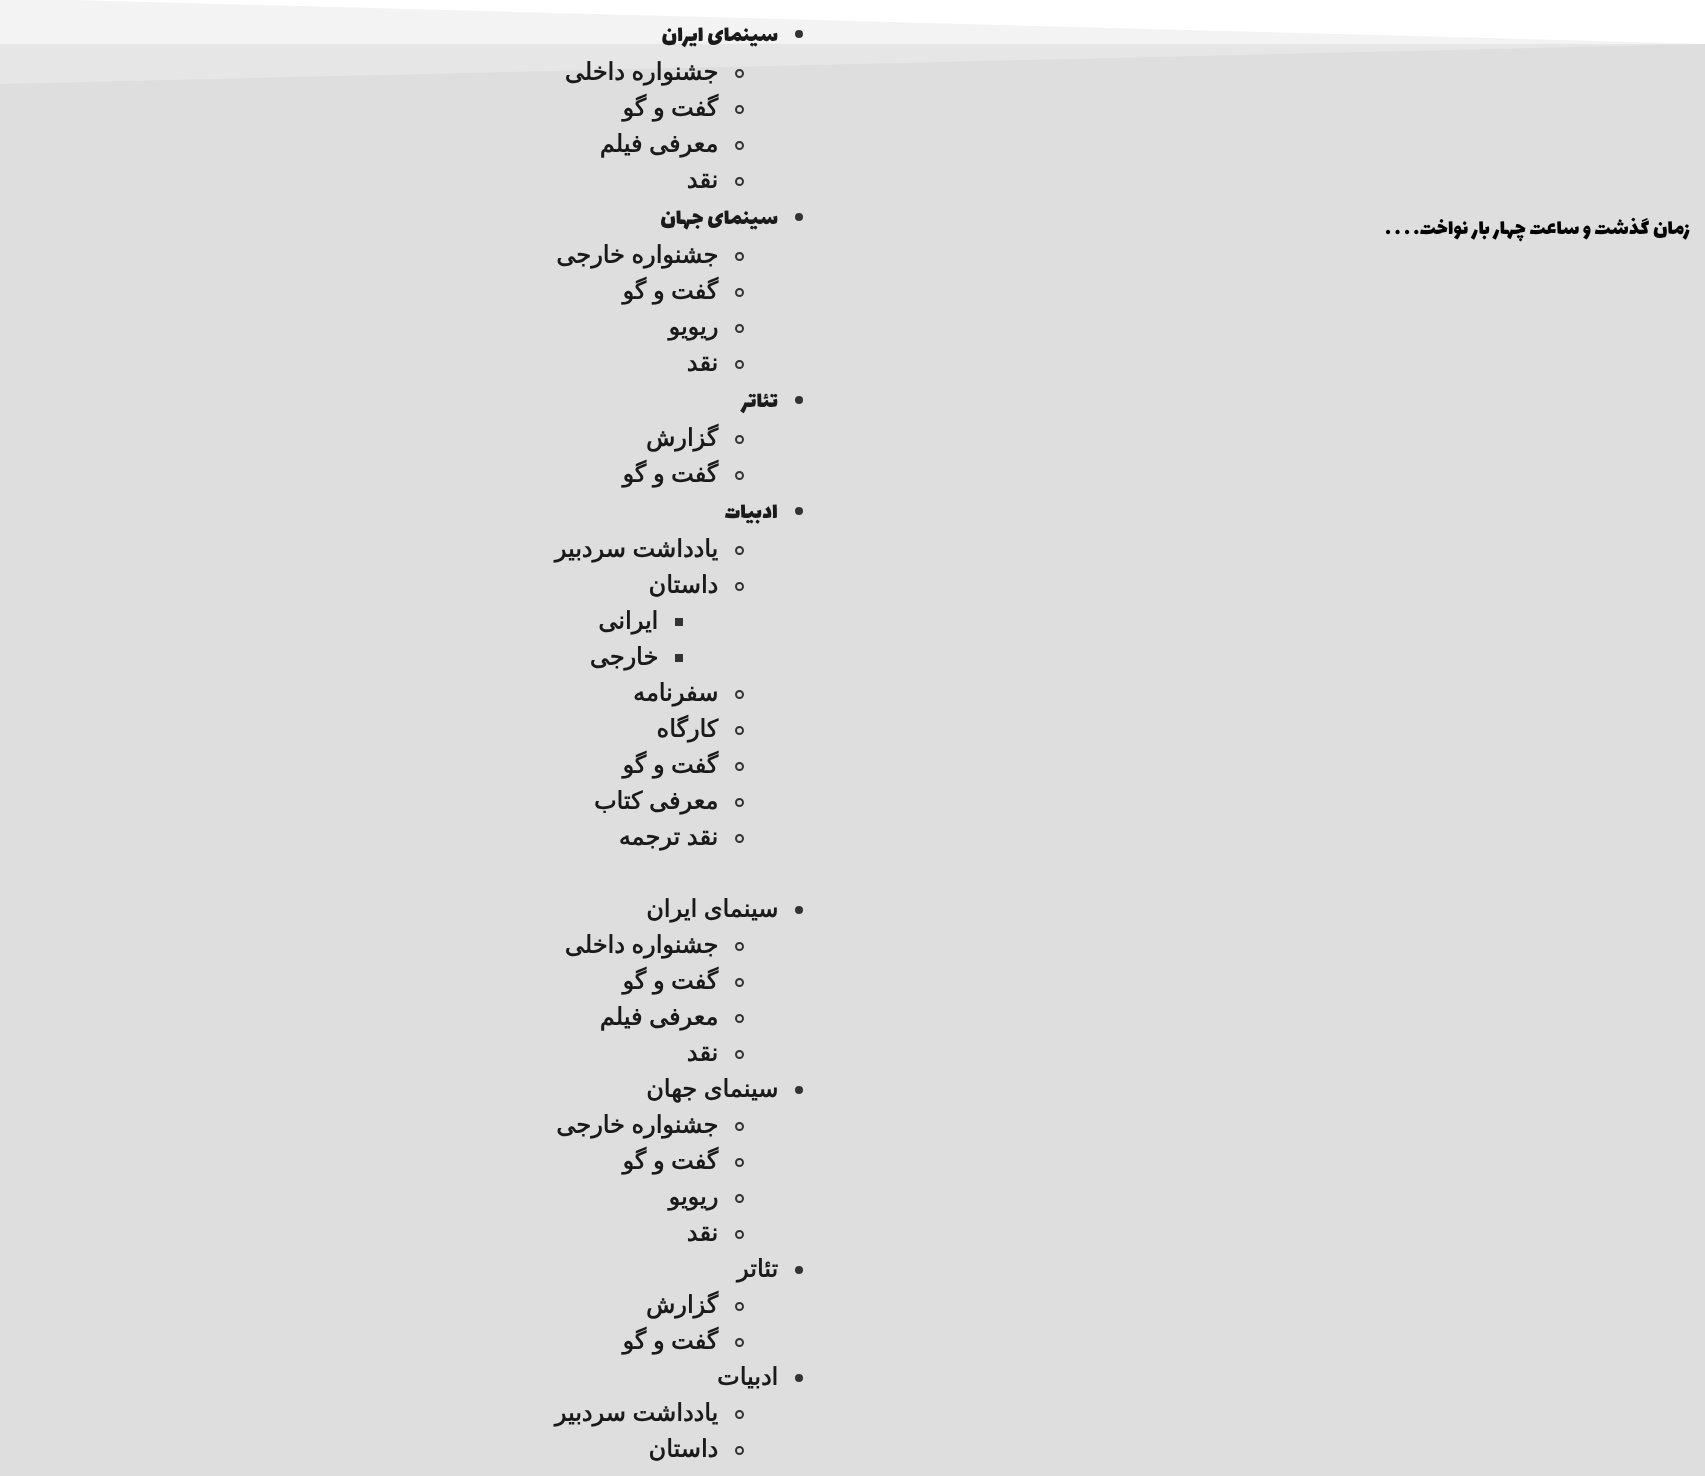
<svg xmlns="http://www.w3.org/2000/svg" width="1705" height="1476">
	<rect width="100%" height="100%" fill="#DEDEDE" />
	<rect x="0" y="0" width="1705" height="44" fill="#EFEFEF" />
	<path d="M0-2H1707V44Z" fill="#FFFFFF" />
	<path d="M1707-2H0V84L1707 44Z" fill="#FFFFFF" fill-opacity="0.25" />
	<text x="1690" y="234" font-family="Lalezar" font-size="22.5" direction="rtl" fill="#000000">زمان گذشت و ساعت چهار بار نواخت. . . .</text>
	<circle cx="799" cy="34" r="4" fill="#333333" />
	<text x="778" y="41" font-family="Lalezar" font-size="24" direction="rtl" fill="#1A1A1A">سینمای ایران</text>
	<circle cx="739.5" cy="73.5" r="3.5" fill="none" stroke="#333333" stroke-width="2" />
	<text x="718" y="80" word-spacing="-1" font-family="DejaVu Sans" font-size="24" font-weight="700" direction="rtl" fill="#1A1A1A">جشنواره داخلی</text>
	<circle cx="739.5" cy="109.5" r="3.5" fill="none" stroke="#333333" stroke-width="2" />
	<text x="718" y="116" word-spacing="-1" font-family="DejaVu Sans" font-size="24" font-weight="700" direction="rtl" fill="#1A1A1A">گفت و گو</text>
	<circle cx="739.5" cy="145.5" r="3.5" fill="none" stroke="#333333" stroke-width="2" />
	<text x="718" y="152" word-spacing="-1" font-family="DejaVu Sans" font-size="24" font-weight="700" direction="rtl" fill="#1A1A1A">معرفی فیلم</text>
	<circle cx="739.5" cy="181.5" r="3.5" fill="none" stroke="#333333" stroke-width="2" />
	<text x="718" y="188" font-family="DejaVu Sans" font-size="24" font-weight="700" direction="rtl" fill="#1A1A1A">نقد</text>
	<circle cx="799" cy="217" r="4" fill="#333333" />
	<text x="778" y="224" font-family="Lalezar" font-size="24" direction="rtl" fill="#1A1A1A">سینمای جهان</text>
	<circle cx="739.5" cy="256.5" r="3.5" fill="none" stroke="#333333" stroke-width="2" />
	<text x="718" y="263" word-spacing="-1" font-family="DejaVu Sans" font-size="24" font-weight="700" direction="rtl" fill="#1A1A1A">جشنواره خارجی</text>
	<circle cx="739.5" cy="292.5" r="3.5" fill="none" stroke="#333333" stroke-width="2" />
	<text x="718" y="299" word-spacing="-1" font-family="DejaVu Sans" font-size="24" font-weight="700" direction="rtl" fill="#1A1A1A">گفت و گو</text>
	<circle cx="739.5" cy="328.5" r="3.5" fill="none" stroke="#333333" stroke-width="2" />
	<text x="718" y="335" font-family="DejaVu Sans" font-size="24" font-weight="700" direction="rtl" fill="#1A1A1A">ریویو</text>
	<circle cx="739.5" cy="364.5" r="3.5" fill="none" stroke="#333333" stroke-width="2" />
	<text x="718" y="371" font-family="DejaVu Sans" font-size="24" font-weight="700" direction="rtl" fill="#1A1A1A">نقد</text>
	<circle cx="799" cy="400" r="4" fill="#333333" />
	<text x="778" y="407" font-family="Lalezar" font-size="24" direction="rtl" fill="#1A1A1A">تئاتر</text>
	<circle cx="739.5" cy="439.5" r="3.5" fill="none" stroke="#333333" stroke-width="2" />
	<text x="718" y="446" font-family="DejaVu Sans" font-size="24" font-weight="700" direction="rtl" fill="#1A1A1A">گزارش</text>
	<circle cx="739.5" cy="475.5" r="3.5" fill="none" stroke="#333333" stroke-width="2" />
	<text x="718" y="482" word-spacing="-1" font-family="DejaVu Sans" font-size="24" font-weight="700" direction="rtl" fill="#1A1A1A">گفت و گو</text>
	<circle cx="799" cy="511" r="4" fill="#333333" />
	<text x="778" y="518" font-family="Lalezar" font-size="24" direction="rtl" fill="#1A1A1A">ادبیات</text>
	<circle cx="739.5" cy="550.5" r="3.5" fill="none" stroke="#333333" stroke-width="2" />
	<text x="718" y="557" word-spacing="-1" font-family="DejaVu Sans" font-size="24" font-weight="700" direction="rtl" fill="#1A1A1A">یادداشت سردبیر</text>
	<circle cx="739.5" cy="586.5" r="3.5" fill="none" stroke="#333333" stroke-width="2" />
	<text x="718" y="593" font-family="DejaVu Sans" font-size="24" font-weight="700" direction="rtl" fill="#1A1A1A">داستان</text>
	<rect x="675" y="618" width="8" height="8" fill="#333333" />
	<text x="658" y="629" font-family="DejaVu Sans" font-size="24" font-weight="700" direction="rtl" fill="#1A1A1A">ایرانی</text>
	<rect x="675" y="654" width="8" height="8" fill="#333333" />
	<text x="658" y="665" font-family="DejaVu Sans" font-size="24" font-weight="700" direction="rtl" fill="#1A1A1A">خارجی</text>
	<circle cx="739.5" cy="694.5" r="3.5" fill="none" stroke="#333333" stroke-width="2" />
	<text x="718" y="701" font-family="DejaVu Sans" font-size="24" font-weight="700" direction="rtl" fill="#1A1A1A">سفرنامه</text>
	<circle cx="739.5" cy="730.5" r="3.5" fill="none" stroke="#333333" stroke-width="2" />
	<text x="718" y="737" font-family="DejaVu Sans" font-size="24" font-weight="700" direction="rtl" fill="#1A1A1A">کارگاه</text>
	<circle cx="739.5" cy="766.5" r="3.5" fill="none" stroke="#333333" stroke-width="2" />
	<text x="718" y="773" word-spacing="-1" font-family="DejaVu Sans" font-size="24" font-weight="700" direction="rtl" fill="#1A1A1A">گفت و گو</text>
	<circle cx="739.5" cy="802.5" r="3.5" fill="none" stroke="#333333" stroke-width="2" />
	<text x="718" y="809" word-spacing="-1" font-family="DejaVu Sans" font-size="24" font-weight="700" direction="rtl" fill="#1A1A1A">معرفی کتاب</text>
	<circle cx="739.5" cy="838.5" r="3.5" fill="none" stroke="#333333" stroke-width="2" />
	<text x="718" y="845" word-spacing="-1" font-family="DejaVu Sans" font-size="24" font-weight="700" direction="rtl" fill="#1A1A1A">نقد ترجمه</text>
	<circle cx="799" cy="910" r="4" fill="#333333" />
	<text x="778" y="917" word-spacing="-1" font-family="DejaVu Sans" font-size="24" font-weight="700" direction="rtl" fill="#1A1A1A">سینمای ایران</text>
	<circle cx="739.5" cy="946.5" r="3.5" fill="none" stroke="#333333" stroke-width="2" />
	<text x="718" y="953" word-spacing="-1" font-family="DejaVu Sans" font-size="24" font-weight="700" direction="rtl" fill="#1A1A1A">جشنواره داخلی</text>
	<circle cx="739.5" cy="982.5" r="3.5" fill="none" stroke="#333333" stroke-width="2" />
	<text x="718" y="989" word-spacing="-1" font-family="DejaVu Sans" font-size="24" font-weight="700" direction="rtl" fill="#1A1A1A">گفت و گو</text>
	<circle cx="739.5" cy="1018.5" r="3.5" fill="none" stroke="#333333" stroke-width="2" />
	<text x="718" y="1025" word-spacing="-1" font-family="DejaVu Sans" font-size="24" font-weight="700" direction="rtl" fill="#1A1A1A">معرفی فیلم</text>
	<circle cx="739.5" cy="1054.5" r="3.5" fill="none" stroke="#333333" stroke-width="2" />
	<text x="718" y="1061" font-family="DejaVu Sans" font-size="24" font-weight="700" direction="rtl" fill="#1A1A1A">نقد</text>
	<circle cx="799" cy="1090" r="4" fill="#333333" />
	<text x="778" y="1097" word-spacing="-1" font-family="DejaVu Sans" font-size="24" font-weight="700" direction="rtl" fill="#1A1A1A">سینمای جهان</text>
	<circle cx="739.5" cy="1126.5" r="3.5" fill="none" stroke="#333333" stroke-width="2" />
	<text x="718" y="1133" word-spacing="-1" font-family="DejaVu Sans" font-size="24" font-weight="700" direction="rtl" fill="#1A1A1A">جشنواره خارجی</text>
	<circle cx="739.5" cy="1162.5" r="3.5" fill="none" stroke="#333333" stroke-width="2" />
	<text x="718" y="1169" word-spacing="-1" font-family="DejaVu Sans" font-size="24" font-weight="700" direction="rtl" fill="#1A1A1A">گفت و گو</text>
	<circle cx="739.5" cy="1198.5" r="3.5" fill="none" stroke="#333333" stroke-width="2" />
	<text x="718" y="1205" font-family="DejaVu Sans" font-size="24" font-weight="700" direction="rtl" fill="#1A1A1A">ریویو</text>
	<circle cx="739.5" cy="1234.5" r="3.5" fill="none" stroke="#333333" stroke-width="2" />
	<text x="718" y="1241" font-family="DejaVu Sans" font-size="24" font-weight="700" direction="rtl" fill="#1A1A1A">نقد</text>
	<circle cx="799" cy="1270" r="4" fill="#333333" />
	<text x="778" y="1277" font-family="DejaVu Sans" font-size="24" font-weight="700" direction="rtl" fill="#1A1A1A">تئاتر</text>
	<circle cx="739.5" cy="1306.5" r="3.5" fill="none" stroke="#333333" stroke-width="2" />
	<text x="718" y="1313" font-family="DejaVu Sans" font-size="24" font-weight="700" direction="rtl" fill="#1A1A1A">گزارش</text>
	<circle cx="739.5" cy="1342.5" r="3.5" fill="none" stroke="#333333" stroke-width="2" />
	<text x="718" y="1349" word-spacing="-1" font-family="DejaVu Sans" font-size="24" font-weight="700" direction="rtl" fill="#1A1A1A">گفت و گو</text>
	<circle cx="799" cy="1378" r="4" fill="#333333" />
	<text x="778" y="1385" font-family="DejaVu Sans" font-size="24" font-weight="700" direction="rtl" fill="#1A1A1A">ادبیات</text>
	<circle cx="739.5" cy="1414.5" r="3.5" fill="none" stroke="#333333" stroke-width="2" />
	<text x="718" y="1421" word-spacing="-1" font-family="DejaVu Sans" font-size="24" font-weight="700" direction="rtl" fill="#1A1A1A">یادداشت سردبیر</text>
	<circle cx="739.5" cy="1450.5" r="3.5" fill="none" stroke="#333333" stroke-width="2" />
	<text x="718" y="1457" font-family="DejaVu Sans" font-size="24" font-weight="700" direction="rtl" fill="#1A1A1A">داستان</text>
</svg>
